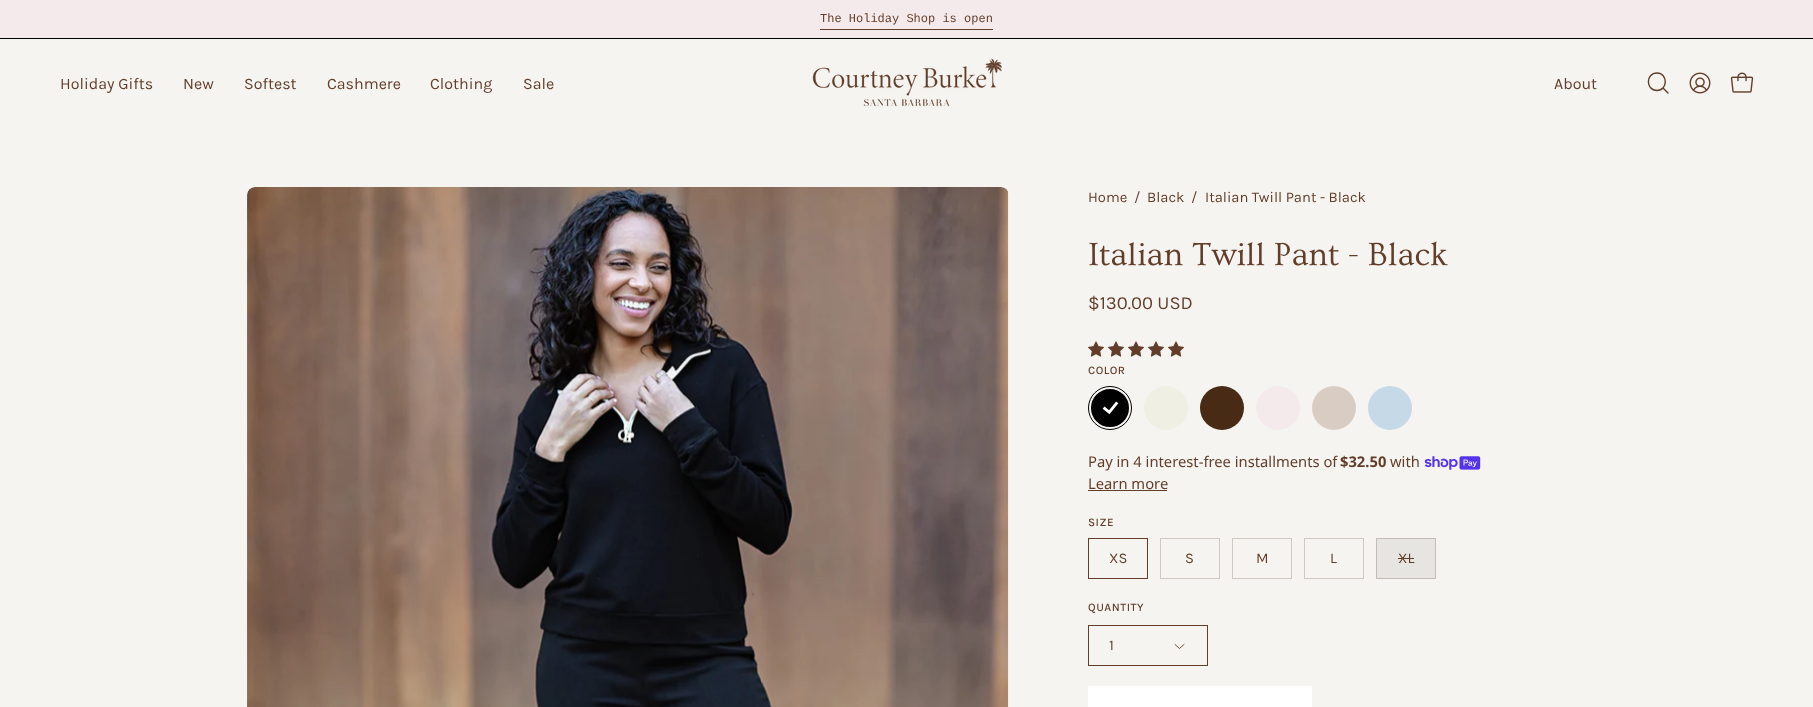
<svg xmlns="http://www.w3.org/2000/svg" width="1813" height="707">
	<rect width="100%" height="100%" fill="#F5F4F1" />
	<rect x="0" y="0" width="1813" height="38" fill="#F4EAEC" />
	<rect x="0" y="38" width="1813" height="1" fill="#000000" />
	<text x="820" y="22" font-family="Liberation Mono" font-size="12" fill="#623E2A">The Holiday Shop is open</text>
	<rect x="820" y="29" width="173" height="1" fill="#623E2A" />
	<image x="812" y="58" width="190" height="49" href="assets/img1.png" />
	<g font-family="Karla" font-size="16" fill="#623E2A">
		<text x="60" y="89">Holiday Gifts</text>
		<text x="183" y="89">New</text>
		<text x="244" y="89">Softest</text>
		<text x="327" y="89">Cashmere</text>
		<text x="430" y="89">Clothing</text>
		<text x="523" y="89">Sale</text>
		<text x="1554" y="89">About</text>
	</g>
	<path d="M1657 90.5C1668 90.5 1668 73 1657 73C1645.5 73 1645.5 90.5 1657 90.5ZM1663 88L1668 93" fill="none" stroke="#623E2A" stroke-width="1.4" stroke-linecap="round" stroke-linejoin="round" />
	<image x="1689" y="72" width="22" height="22" href="assets/img2.png" />
	<image x="1730" y="72" width="24" height="21" href="assets/img3.png" />
	<image x="247" y="187" width="762" height="520" href="assets/img4.png" />
	<g font-family="Karla" font-size="14.75" fill="#623E2A">
		<text x="1088" y="202">Home</text>
		<text x="1134" y="202">/</text>
		<text x="1147" y="202">Black</text>
		<text x="1191" y="202">/</text>
		<text x="1205" y="202">Italian Twill Pant - Black</text>
	</g>
	<text x="1088" y="265" font-family="Ovo" font-size="33.6" fill="#623E2A">Italian Twill Pant - Black</text>
	<text x="1088" y="309" font-family="Karla" font-size="18.5" fill="#623E2A">$130.00 USD</text>
	<image x="1088" y="341" width="16" height="16" href="assets/img5.png" />
	<image x="1108" y="341" width="16" height="16" href="assets/img5.png" />
	<image x="1128" y="341" width="16" height="16" href="assets/img5.png" />
	<image x="1148" y="341" width="16" height="16" href="assets/img5.png" />
	<image x="1168" y="341" width="16" height="16" href="assets/img5.png" />
	<text x="1088" y="374" font-family="Karla" font-size="11.5" font-weight="500" letter-spacing="0.5" fill="#623E2A">COLOR</text>
	<circle cx="1110" cy="408" r="20.5" fill="#000000" stroke="#F5F4F1" stroke-width="3" />
	<image x="1102" y="401" width="17" height="14" href="assets/img6.png" />
	<circle cx="1110" cy="408" r="21.5" fill="none" stroke="#000000" />
	<circle cx="1166" cy="408" r="22" fill="#EFEFE4" />
	<circle cx="1222" cy="408" r="22" fill="#472B14" />
	<circle cx="1278" cy="408" r="22" fill="#F4EAEC" />
	<circle cx="1334" cy="408" r="22" fill="#D9CDC3" />
	<circle cx="1390" cy="408" r="22" fill="#C5D9E6" />
	<text x="1088" y="467" font-family="Noto Sans" font-size="14.75" fill="#623E2A">Pay in 4 interest-free installments of</text>
	<text x="1340" y="467" font-family="Noto Sans" font-size="14.75" font-weight="700" fill="#623E2A">$32.50</text>
	<text x="1390" y="467" font-family="Noto Sans" font-size="14.75" fill="#623E2A">with</text>
	<image x="1424" y="456" width="57" height="14" href="assets/img7.png" />
	<text x="1088" y="489" font-family="Noto Sans" font-size="14.75" fill="#623E2A">Learn more</text>
	<rect x="1088" y="490" width="79" height="1" fill="#623E2A" />
	<text x="1088" y="526" font-family="Karla" font-size="11.5" font-weight="500" letter-spacing="0.5" fill="#623E2A">SIZE</text>
	<rect x="1088.5" y="538.5" width="59" height="40" fill="none" stroke="#623E2A" />
	<text x="1109" y="563" font-family="Karla" font-size="14.75" fill="#623E2A">XS</text>
	<rect x="1160.5" y="538.5" width="59" height="40" fill="none" stroke="#D0C7BF" />
	<text x="1185" y="563" font-family="Karla" font-size="14.75" fill="#623E2A">S</text>
	<rect x="1232.5" y="538.5" width="59" height="40" fill="none" stroke="#D0C7BF" />
	<text x="1256" y="563" font-family="Karla" font-size="14.75" fill="#623E2A">M</text>
	<rect x="1304.5" y="538.5" width="59" height="40" fill="none" stroke="#D0C7BF" />
	<text x="1330" y="563" font-family="Karla" font-size="14.75" fill="#623E2A">L</text>
	<rect x="1376.5" y="538.5" width="59" height="40" fill="#E6E5E2" stroke="#C5BBB4" />
	<text x="1398" y="563" font-family="Karla" font-size="14.75" fill="#623E2A">XL</text>
	<rect x="1398" y="558" width="16" height="1" fill="#623E2A" />
	<text x="1088" y="611" font-family="Karla" font-size="11.5" font-weight="500" letter-spacing="0.5" fill="#623E2A">QUANTITY</text>
	<rect x="1088.5" y="625.5" width="119" height="40" fill="none" stroke="#623E2A" />
	<text x="1109" y="650" font-family="Karla" font-size="14.75" fill="#623E2A">1</text>
	<path d="M1184 644.5L1179.5 648.5L1175 644.5" fill="none" stroke="#623E2A" stroke-width="0.9" stroke-linecap="round" stroke-linejoin="round" />
	<rect x="1088" y="686" width="224" height="21" fill="#FFFFFF" />
</svg>
